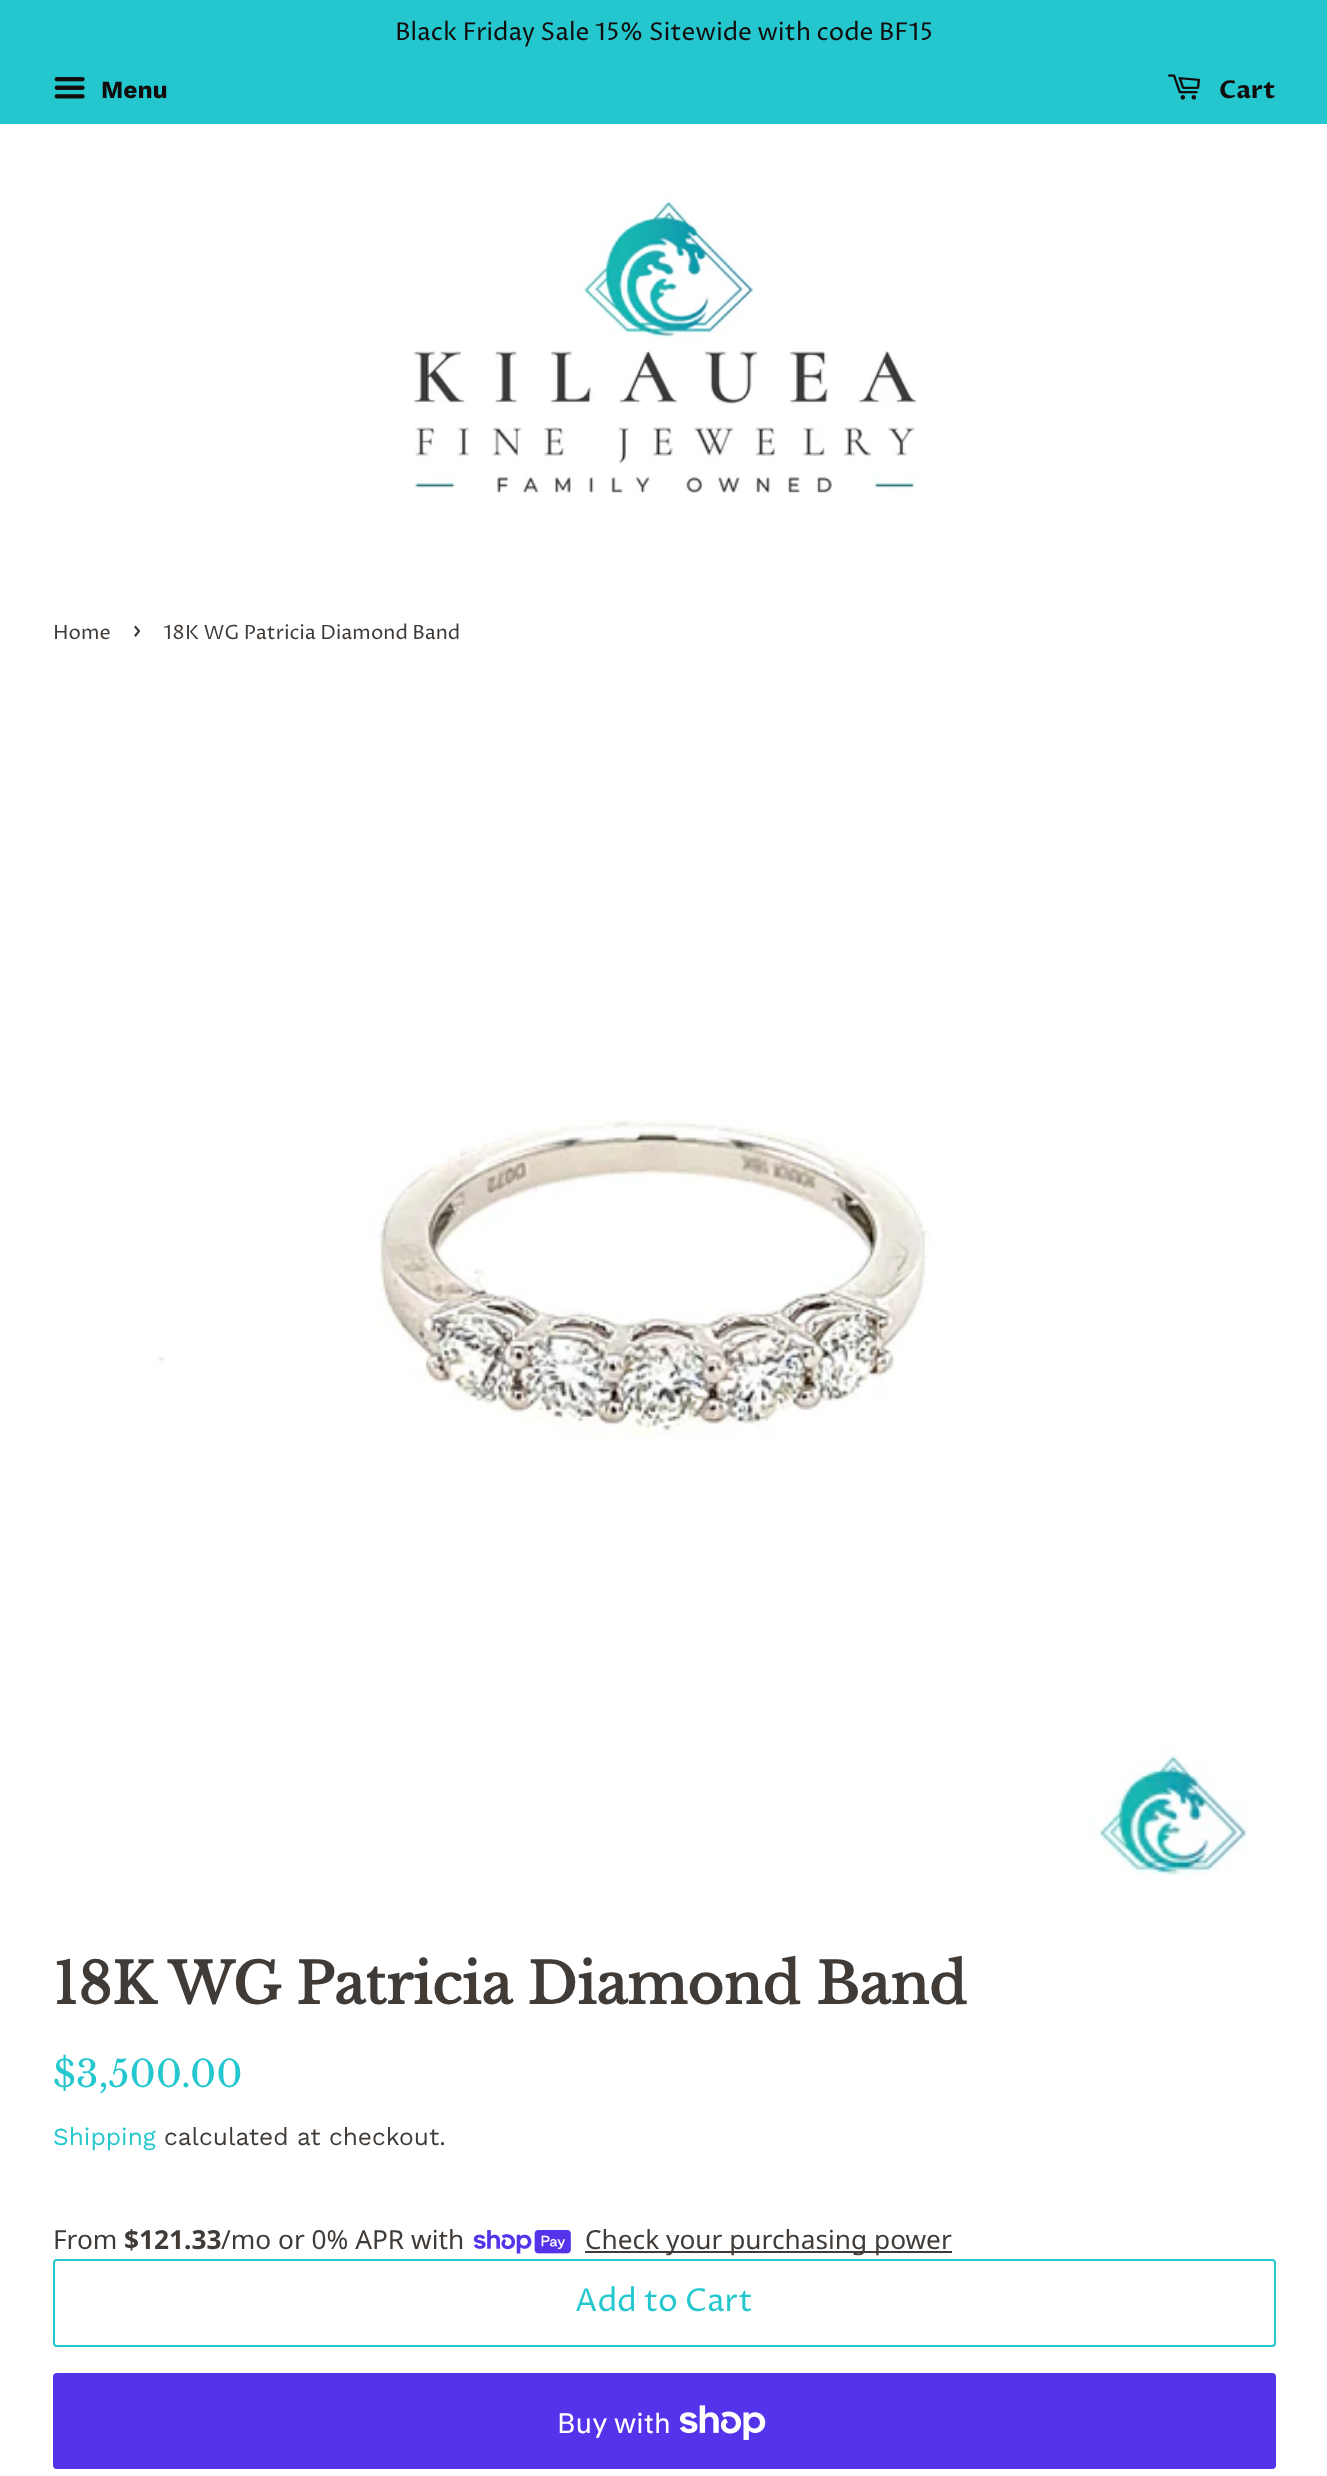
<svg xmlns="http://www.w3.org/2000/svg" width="1327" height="2476">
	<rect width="100%" height="100%" fill="#FFFFFF" />
	<rect x="0" y="0" width="1327" height="124" fill="#24C7CD" />
	<text x="395" y="40" font-family="Proza Libre" font-size="24.5" fill="#120C0C">Black Friday Sale 15% Sitewide with code BF15</text>
	<image x="54" y="77" width="31" height="22" href="assets/img1.png" />
	<text x="101" y="98" font-family="Work Sans" font-size="24.5" font-weight="700" fill="#120C0C">Menu</text>
	<image x="1168" y="74" width="32" height="26" href="assets/img2.png" />
	<text x="1219" y="98" font-family="Proza Libre" font-size="24.5" font-weight="700" fill="#120C0C">Cart</text>
	<image x="414" y="194" width="503" height="299" href="assets/img3.png" />
	<text x="53" y="639" font-family="Proza Libre" font-size="19.75" fill="#403B37">Home</text>
	<text x="132" y="639" font-family="Proza Libre" font-size="28" fill="#403B37">›</text>
	<text x="163" y="639" font-family="Proza Libre" font-size="19.75" fill="#403B37">18K WG Patricia Diamond Band</text>
	<image x="153" y="1120" width="1095" height="756" href="assets/img4.png" />
	<text x="53" y="2004" font-family="Libre Baskerville" font-size="56" font-weight="700" fill="#403B37">18K WG Patricia Diamond Band</text>
	<text x="53" y="2087" font-family="Libre Baskerville" font-size="36.75" fill="#24C7CD">$3,500.00</text>
	<text x="53" y="2145" font-family="Work Sans" font-size="24.5" fill="#24C7CD">Shipping</text>
	<text x="164" y="2145" font-family="Work Sans" font-size="24.5" fill="#403B37">calculated at checkout.</text>
	<text x="53" y="2249" font-family="Noto Sans" font-size="26.25" fill="#403B37">From</text>
	<text x="124" y="2249" font-family="Noto Sans" font-size="26.25" font-weight="700" fill="#403B37">$121.33</text>
	<text x="221" y="2249" font-family="Noto Sans" font-size="26.25" fill="#403B37">/mo or 0% APR with</text>
	<image x="473" y="2230" width="98" height="24" href="assets/img5.png" />
	<rect x="585" y="2251" width="367" height="2" fill="#403B37" />
	<text x="585" y="2249" font-family="Noto Sans" font-size="26.25" fill="#403B37">Check your purchasing power</text>
	<rect x="54" y="2260" width="1221" height="86" rx="3" fill="none" stroke="#24C7CD" stroke-width="2" />
	<text x="575" y="2311" font-family="Proza Libre" font-size="31.5" fill="#24C7CD">Add to Cart</text>
	<rect x="53" y="2373" width="1223" height="96" rx="4" fill="#5433EB" />
	<text x="557" y="2433" font-family="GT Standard" font-size="28" fill="#FFFFFF">Buy with</text>
	<image x="680" y="2405" width="86" height="35" href="assets/img6.png" />
</svg>
